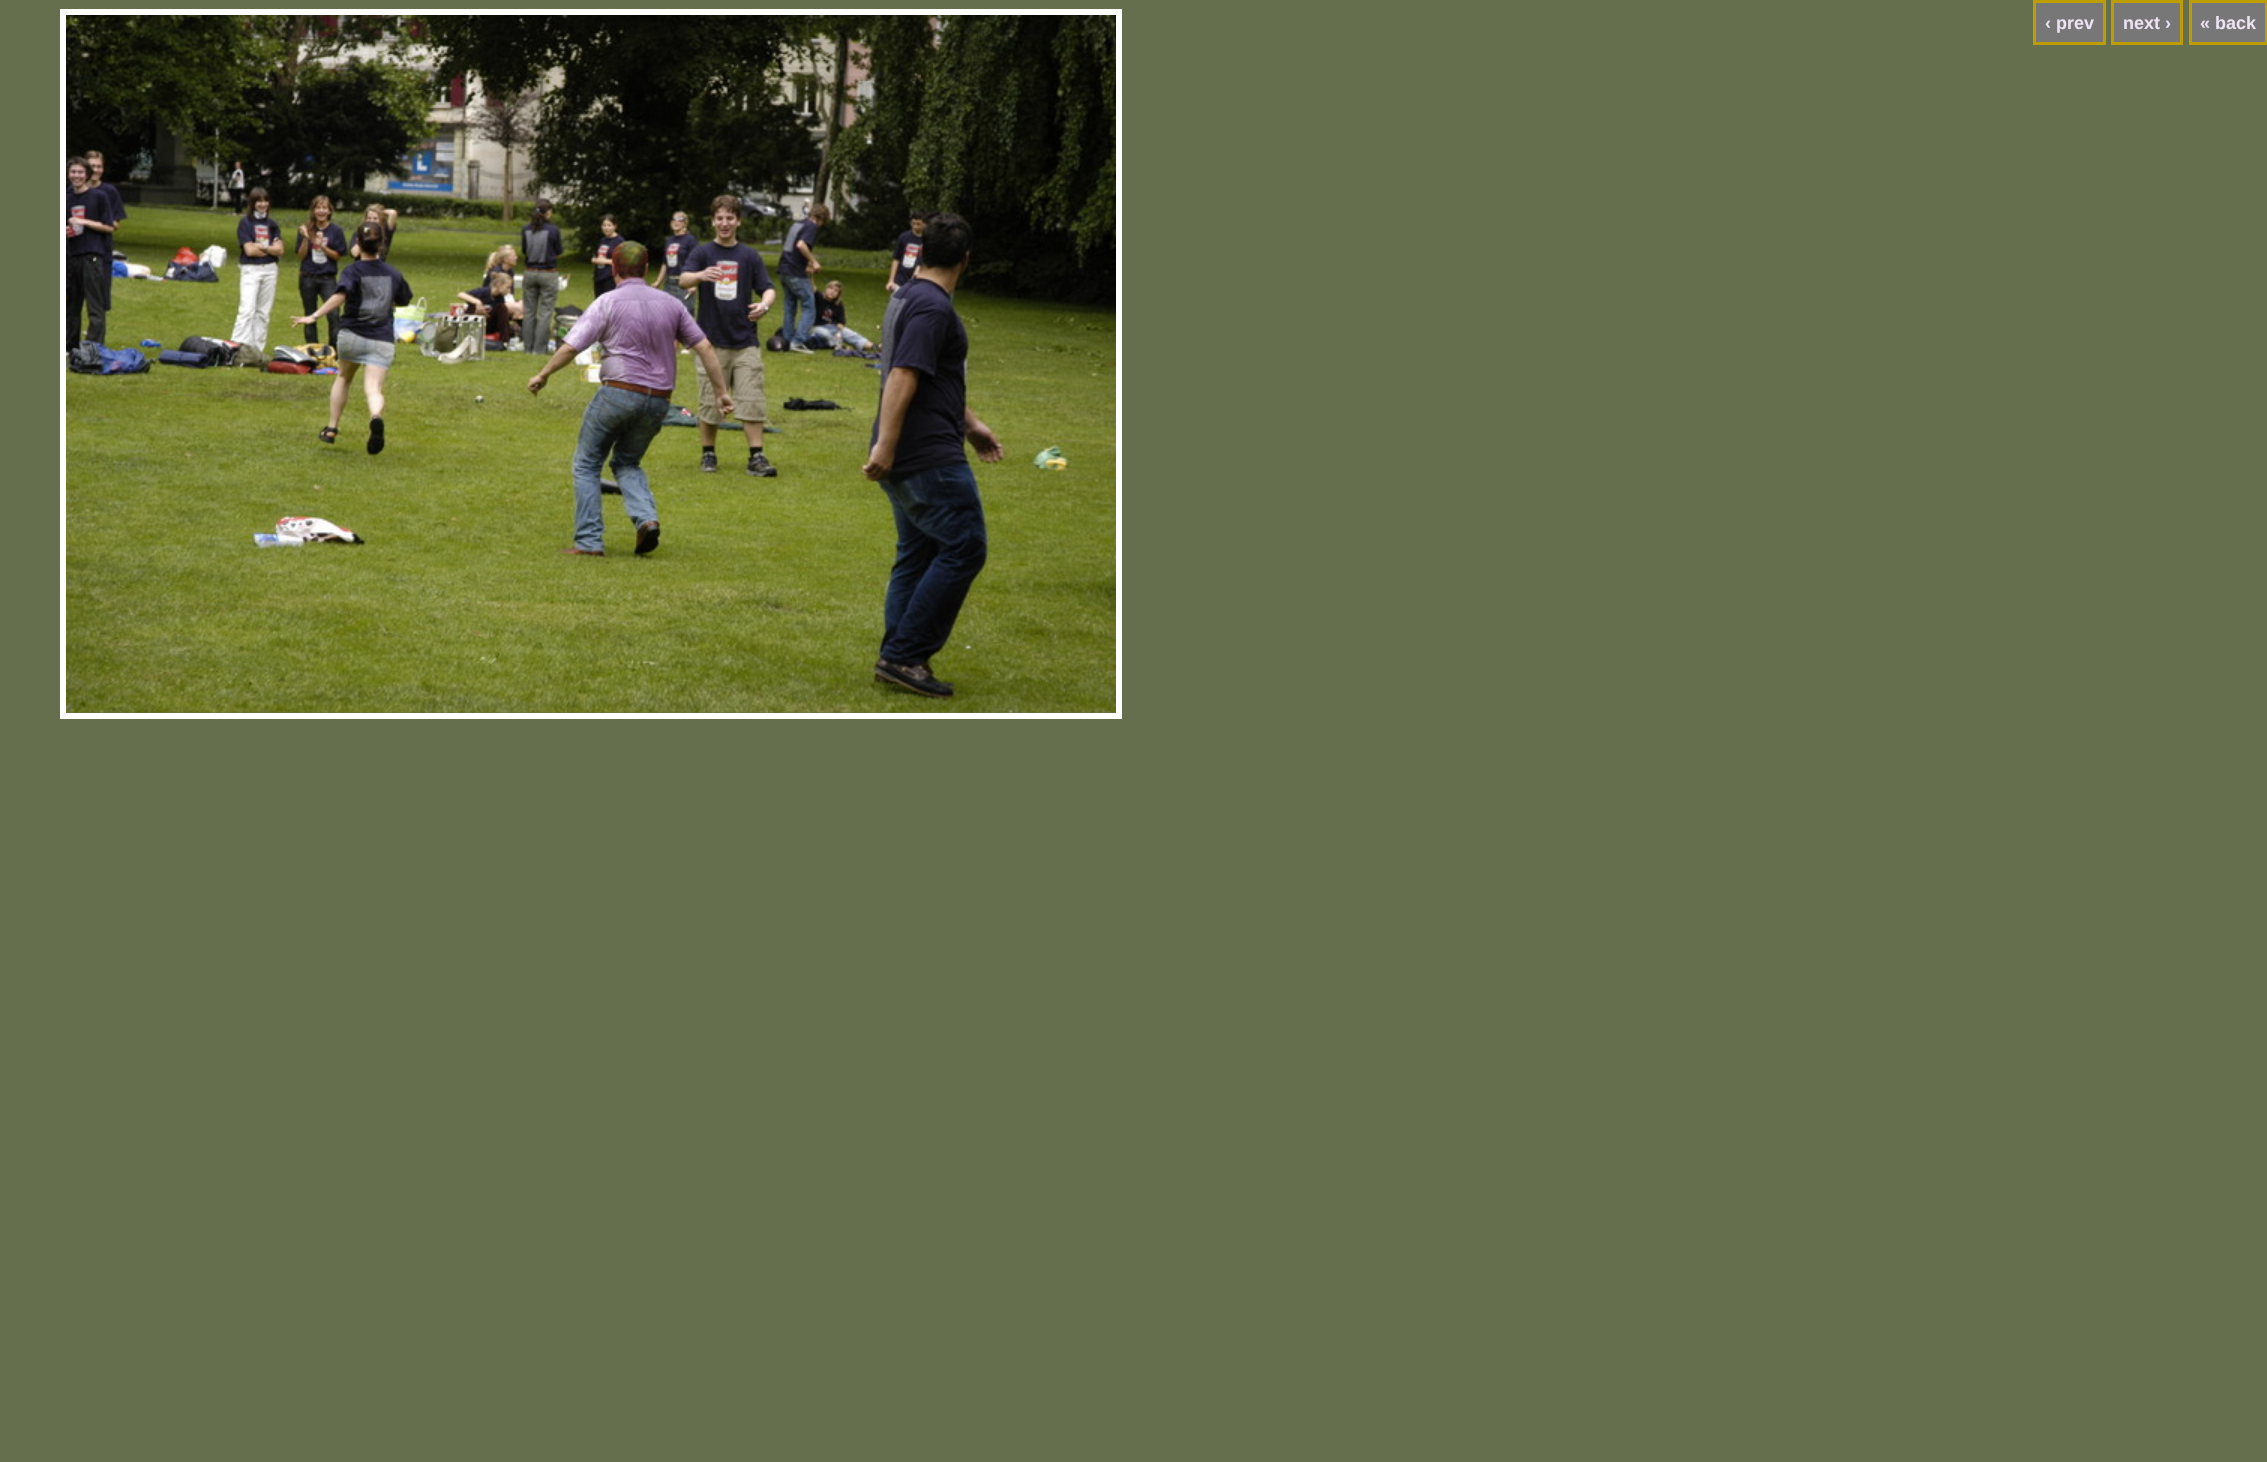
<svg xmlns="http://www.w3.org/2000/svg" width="2267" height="1462">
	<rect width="100%" height="100%" fill="#666F4D" />
	<rect x="63" y="12" width="1056" height="704" fill="none" stroke="#FFFFFF" stroke-width="6" />
	<image x="66" y="15" width="1050" height="698" href="assets/img1.png" />
	<rect x="2034.5" y="1.5" width="70" height="42" fill="#777777" stroke="#BE9D00" stroke-width="3" />
	<text x="2045" y="29" font-family="Liberation Sans" font-size="18" font-weight="700" fill="#EDE3F4">‹ prev</text>
	<rect x="2112.5" y="1.5" width="69" height="42" fill="#777777" stroke="#BE9D00" stroke-width="3" />
	<text x="2123" y="29" font-family="Liberation Sans" font-size="18" font-weight="700" fill="#EDE3F4">next ›</text>
	<rect x="2190.5" y="1.5" width="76" height="42" fill="#777777" stroke="#BE9D00" stroke-width="3" />
	<text x="2200" y="29" font-family="Liberation Sans" font-size="18" font-weight="700" fill="#EDE3F4">« back</text>
</svg>
